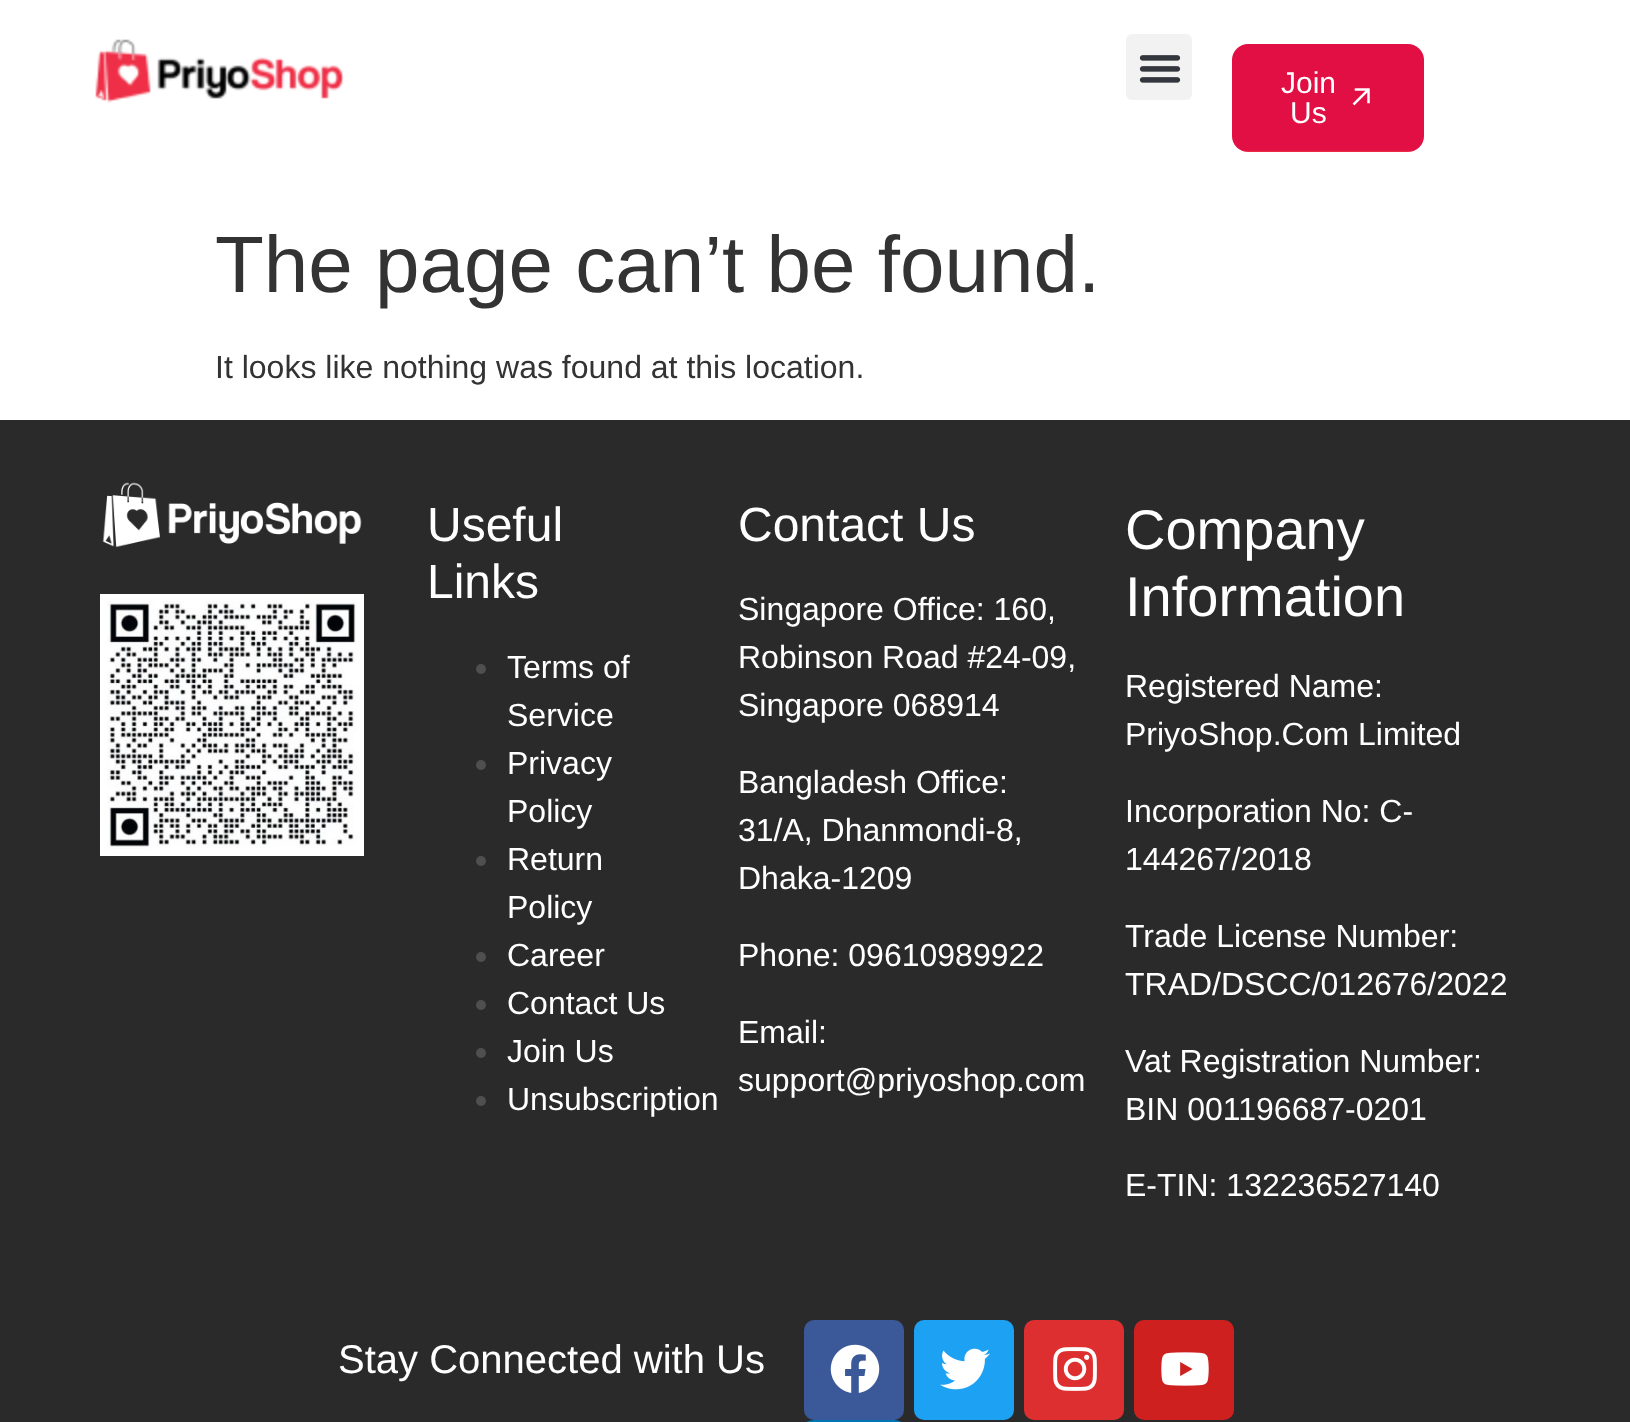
<svg xmlns="http://www.w3.org/2000/svg" width="1630" height="1422">
	<defs>
		<linearGradient id="g1" gradientUnits="userSpaceOnUse" x1="1328" y1="152" x2="1328" y2="44"><stop offset="0" stop-color="#EE2F47" /><stop offset="0.02" stop-color="#E20F44" /></linearGradient>
	</defs>
	<rect width="100%" height="100%" fill="#FFFFFF" />
	<image x="95" y="39" width="249" height="64" href="assets/img1.png" />
	<rect x="1126" y="34" width="66" height="66" rx="6" fill="#F2F2F2" />
	<image x="1139" y="55" width="42" height="28" href="assets/img2.png" />
	<rect x="1232" y="44" width="192" height="108" rx="16" fill="url(#g1)" />
	<g font-family="Liberation Sans" font-size="30" fill="#FFFFFF">
		<text x="1281" y="93">Join</text>
		<text x="1290" y="123">Us</text>
	</g>
	<image x="1352" y="88" width="18" height="18" href="assets/img3.png" />
	<text x="215" y="292" font-family="Liberation Sans" font-size="80" fill="#333333">The page can’t be found.</text>
	<text x="215" y="378" font-family="Liberation Sans" font-size="32" fill="#333333">It looks like nothing was found at this location.</text>
	<rect x="0" y="420" width="1630" height="1002" fill="#2A2A2A" />
	<image x="102" y="482" width="260" height="66" href="assets/img4.png" />
	<image x="100" y="594" width="264" height="262" href="assets/img5.png" />
	<g font-family="Liberation Sans" font-size="48" fill="#FFFFFF">
		<text x="427" y="541">Useful</text>
		<text x="427" y="598">Links</text>
	</g>
	<circle cx="481" cy="669" r="5" fill="#4F4F4F" />
	<g font-family="Liberation Sans" font-size="32" fill="#FFFFFF">
		<text x="507" y="678">Terms of</text>
		<text x="507" y="726">Service</text>
	</g>
	<circle cx="481" cy="765" r="5" fill="#4F4F4F" />
	<g font-family="Liberation Sans" font-size="32" fill="#FFFFFF">
		<text x="507" y="774">Privacy</text>
		<text x="507" y="822">Policy</text>
	</g>
	<circle cx="481" cy="861" r="5" fill="#4F4F4F" />
	<g font-family="Liberation Sans" font-size="32" fill="#FFFFFF">
		<text x="507" y="870">Return</text>
		<text x="507" y="918">Policy</text>
	</g>
	<circle cx="481" cy="957" r="5" fill="#4F4F4F" />
	<text x="507" y="966" font-family="Liberation Sans" font-size="32" fill="#FFFFFF">Career</text>
	<circle cx="481" cy="1005" r="5" fill="#4F4F4F" />
	<text x="507" y="1014" font-family="Liberation Sans" font-size="32" fill="#FFFFFF">Contact Us</text>
	<circle cx="481" cy="1053" r="5" fill="#4F4F4F" />
	<text x="507" y="1062" font-family="Liberation Sans" font-size="32" fill="#FFFFFF">Join Us</text>
	<circle cx="481" cy="1101" r="5" fill="#4F4F4F" />
	<text x="507" y="1110" font-family="Liberation Sans" font-size="32" fill="#FFFFFF">Unsubscription</text>
	<text x="738" y="541" font-family="Liberation Sans" font-size="48" fill="#FFFFFF">Contact Us</text>
	<g font-family="Liberation Sans" font-size="32" fill="#FFFFFF">
		<text x="738" y="620">Singapore Office: 160,</text>
		<text x="738" y="668">Robinson Road #24-09,</text>
		<text x="738" y="716">Singapore 068914</text>
		<text x="738" y="793">Bangladesh Office:</text>
		<text x="738" y="841">31/A, Dhanmondi-8,</text>
		<text x="738" y="889">Dhaka-1209</text>
		<text x="738" y="966">Phone: 09610989922</text>
		<text x="738" y="1043">Email:</text>
		<text x="738" y="1091">support@priyoshop.com</text>
	</g>
	<g font-family="Liberation Sans" font-size="56" fill="#FFFFFF">
		<text x="1125" y="549">Company</text>
		<text x="1125" y="616">Information</text>
	</g>
	<g font-family="Liberation Sans" font-size="32" fill="#FFFFFF">
		<text x="1125" y="697">Registered Name:</text>
		<text x="1125" y="745">PriyoShop.Com Limited</text>
		<text x="1125" y="822">Incorporation No: C-</text>
		<text x="1125" y="870">144267/2018</text>
		<text x="1125" y="947">Trade License Number:</text>
		<text x="1125" y="995">TRAD/DSCC/012676/2022</text>
		<text x="1125" y="1072">Vat Registration Number:</text>
		<text x="1125" y="1120">BIN 001196687-0201</text>
		<text x="1125" y="1196">E-TIN: 132236527140</text>
	</g>
	<text x="338" y="1373" font-family="Liberation Sans" font-size="40" fill="#FFFFFF">Stay Connected with Us</text>
	<rect x="804" y="1320" width="100" height="100" rx="10" fill="#3B5998" />
	<image x="830" y="1344" width="50" height="49" href="assets/img6.png" />
	<rect x="914" y="1320" width="100" height="100" rx="10" fill="#1DA1F2" />
	<image x="940" y="1348" width="50" height="42" href="assets/img7.png" />
	<rect x="1024" y="1320" width="100" height="100" rx="10" fill="#DD2F2F" />
	<image x="1053" y="1347" width="44" height="44" href="assets/img8.png" />
	<rect x="1134" y="1320" width="100" height="100" rx="10" fill="#CD201F" />
	<image x="1161" y="1352" width="48" height="34" href="assets/img9.png" />
	<rect x="804" y="1420" width="100" height="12" rx="10" fill="#0077B5" />
</svg>
